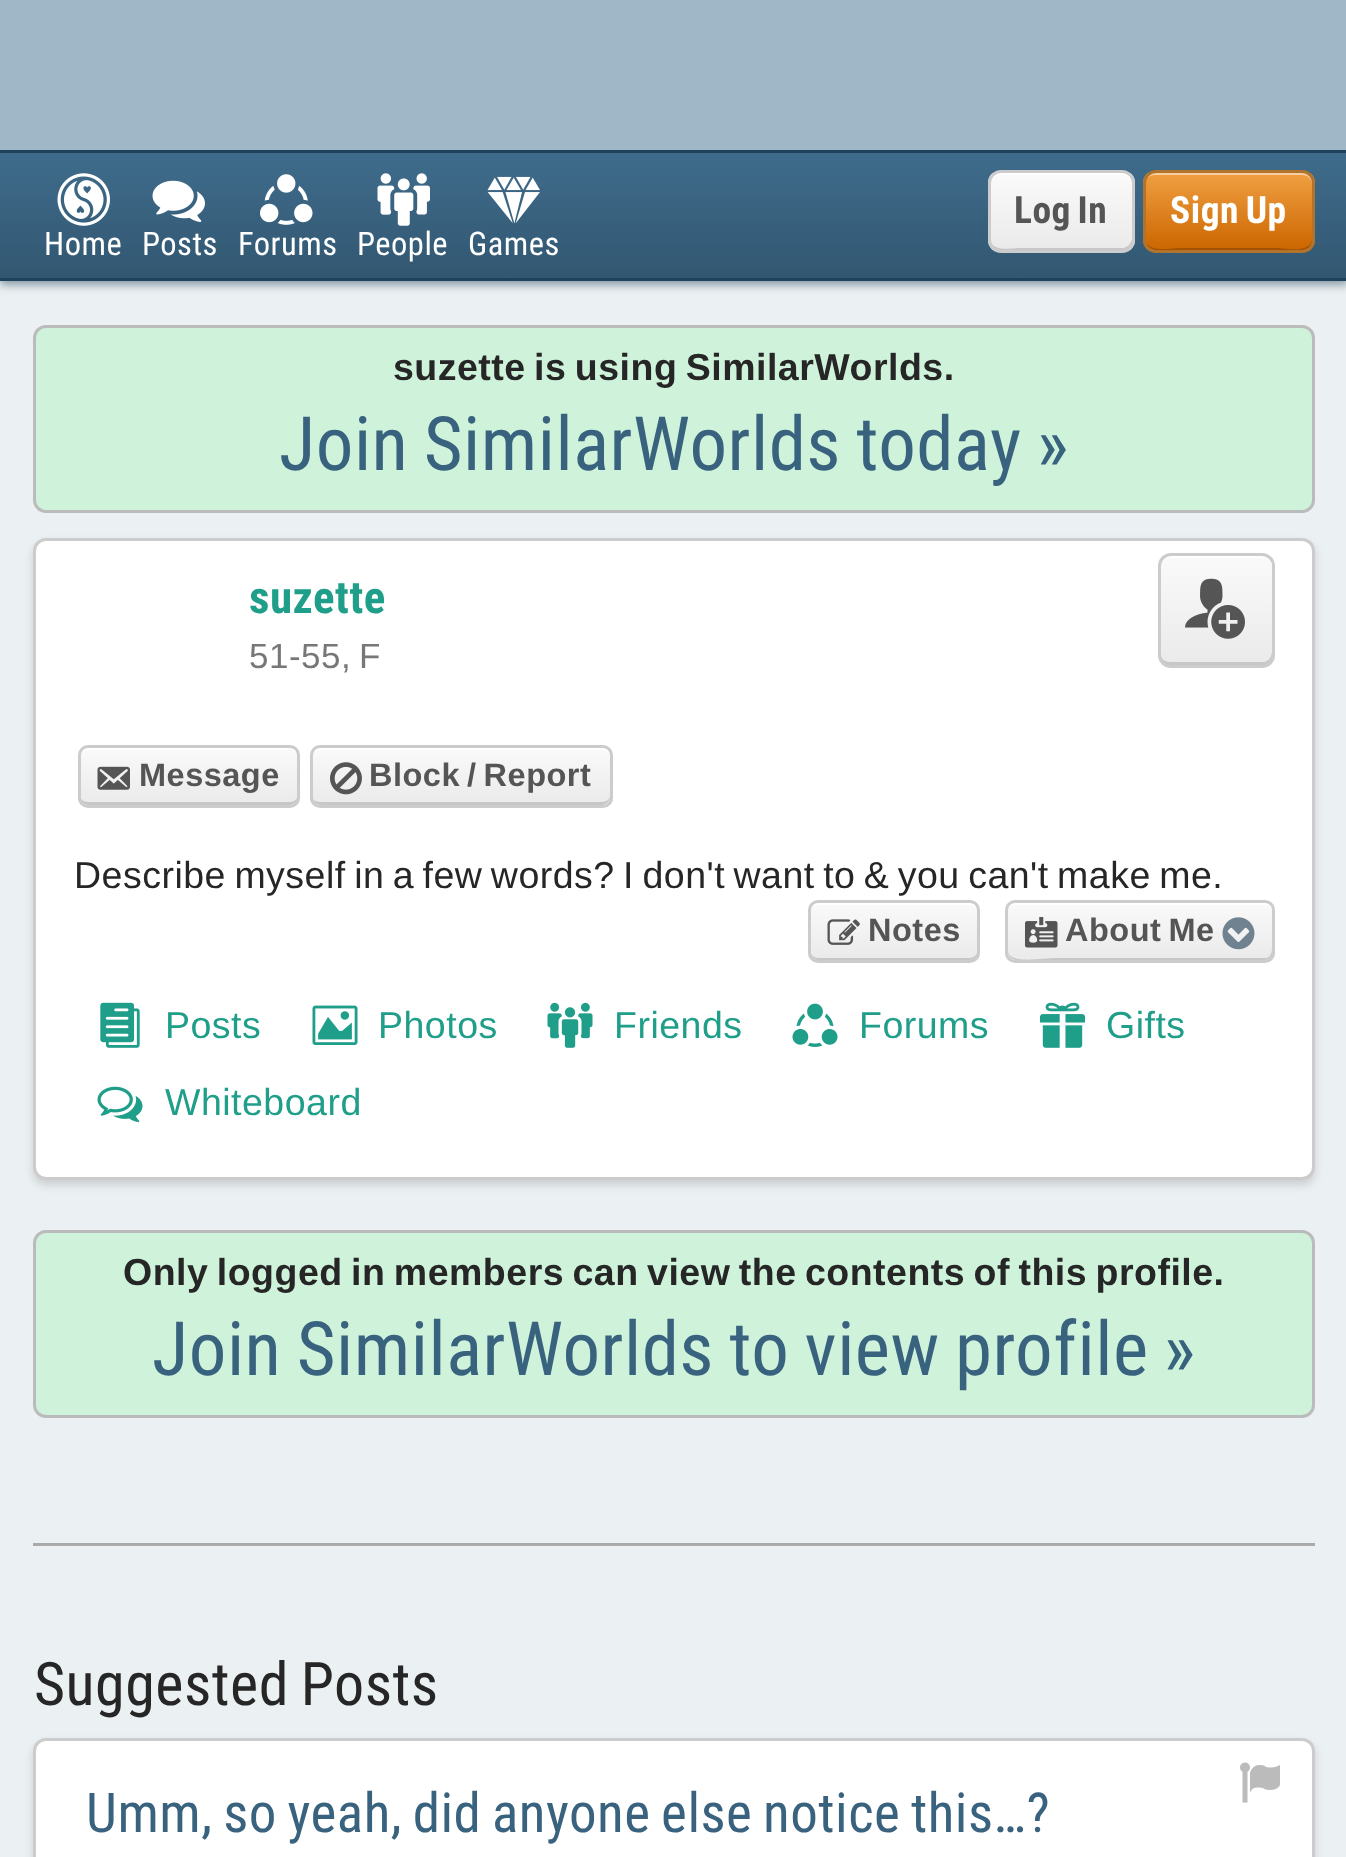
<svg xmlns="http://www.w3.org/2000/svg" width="1346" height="1857">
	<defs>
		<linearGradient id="g1" gradientUnits="userSpaceOnUse" x1="674" y1="152" x2="674" y2="278"><stop offset="0" stop-color="#3F6C8C" /><stop offset="1" stop-color="#325771" /></linearGradient>
		<clipPath id="clip1"><rect x="988" y="170" width="147" height="83" rx="13" /></clipPath>
		<linearGradient id="g2" gradientUnits="userSpaceOnUse" x1="1061" y1="173" x2="1061" y2="250"><stop offset="0" stop-color="#FAFAFA" /><stop offset="1" stop-color="#EAEAEA" /></linearGradient>
		<clipPath id="clip2"><rect x="1143" y="170" width="172" height="83" rx="13" /></clipPath>
		<linearGradient id="g3" gradientUnits="userSpaceOnUse" x1="1229" y1="173" x2="1229" y2="250"><stop offset="0" stop-color="#F09F42" /><stop offset="1" stop-color="#CC6600" /></linearGradient>
		<clipPath id="clip3"><rect x="1158" y="553" width="117" height="115" rx="13" /></clipPath>
		<linearGradient id="g4" gradientUnits="userSpaceOnUse" x1="1216" y1="555" x2="1216" y2="665"><stop offset="0" stop-color="#FAFAFA" /><stop offset="1" stop-color="#EAEAEA" /></linearGradient>
		<clipPath id="clip4"><rect x="78" y="745" width="222" height="63" rx="10" /></clipPath>
		<linearGradient id="g5" gradientUnits="userSpaceOnUse" x1="189" y1="748" x2="189" y2="805"><stop offset="0" stop-color="#FAFAFA" /><stop offset="1" stop-color="#EAEAEA" /></linearGradient>
		<clipPath id="clip5"><rect x="310" y="745" width="303" height="63" rx="10" /></clipPath>
		<linearGradient id="g6" gradientUnits="userSpaceOnUse" x1="461" y1="748" x2="461" y2="805"><stop offset="0" stop-color="#FAFAFA" /><stop offset="1" stop-color="#EAEAEA" /></linearGradient>
		<clipPath id="clip6"><rect x="808" y="900" width="172" height="63" rx="10" /></clipPath>
		<linearGradient id="g7" gradientUnits="userSpaceOnUse" x1="894" y1="903" x2="894" y2="960"><stop offset="0" stop-color="#FAFAFA" /><stop offset="1" stop-color="#EAEAEA" /></linearGradient>
		<clipPath id="clip7"><rect x="1005" y="900" width="270" height="63" rx="10" /></clipPath>
		<linearGradient id="g8" gradientUnits="userSpaceOnUse" x1="1140" y1="903" x2="1140" y2="960"><stop offset="0" stop-color="#FAFAFA" /><stop offset="1" stop-color="#EAEAEA" /></linearGradient>
	</defs>
	<rect width="100%" height="100%" fill="#EBF0F2" />
	<rect x="0" y="155" width="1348" height="130" fill="#264459" fill-opacity="0.5" filter="blur(4px)" />
	<rect x="0" y="0" width="1346" height="150" fill="#9FB7C7" />
	<rect x="0" y="153" width="1346" height="125" fill="url(#g1)" />
	<rect x="0" y="150" width="1346" height="3" fill="#1F425C" />
	<rect x="0" y="278" width="1346" height="3" fill="#1F425C" />
	<g clip-path="url(#clip1)">
		<rect x="988" y="173" width="147" height="77" fill="url(#g2)" />
	</g>
	<path d="M990 238V240C990 246 994 250 1000 250H1123C1129 250 1133 246 1133 240V183C1133 181 1133 180 1132 178V240L1129 245C1128 246 1126 247 1124 248H1020C1014 248 990 253 990 238Z" fill="#000000" fill-opacity="0.15" />
	<path d="M1000 175H1122C1128 175 1132 179 1132 185V242V245C1132 244 1133 242 1133 240V183C1133 177 1129 173 1123 173H1000C994 173 990 177 990 183V185C990 179 994 175 1000 175Z" fill="#FFFFFF" />
	<rect x="989.5" y="171.5" width="144" height="80" rx="11.5" fill="none" stroke="#CCCCCC" stroke-width="3" />
	<text x="1014" y="223" word-spacing="-2.5" font-family="Roboto Condensed" font-size="37.5" font-weight="700" letter-spacing="0.5" fill="#555555">Log In</text>
	<g clip-path="url(#clip2)">
		<rect x="1143" y="173" width="172" height="77" fill="url(#g3)" />
	</g>
	<path d="M1145 238V240C1145 246 1149 250 1155 250H1303C1309 250 1313 246 1313 240V183C1313 181 1313 180 1312 178V240C1309 254 1283 248 1278 248H1180C1174 248 1145 254 1145 238Z" fill="#000000" fill-opacity="0.2" />
	<path d="M1155 175H1302C1308 175 1312 179 1312 185V242V245C1312 244 1313 242 1313 240V183C1313 177 1309 173 1303 173H1155C1149 173 1145 177 1145 183V185C1145 179 1149 175 1155 175Z" fill="#FFFFFF" fill-opacity="0.5" />
	<rect x="1144.5" y="171.5" width="169" height="80" rx="11.5" fill="none" stroke="#B2742C" stroke-width="3" />
	<text x="1170" y="223" word-spacing="-2.5" font-family="Roboto Condensed" font-size="37.5" font-weight="700" letter-spacing="0.5" fill="#FFFFFF">Sign Up</text>
	<image x="57" y="173" width="53" height="53" href="assets/img1.png" />
	<text x="44" y="255" font-family="Roboto Condensed" font-size="32.5" letter-spacing="0.5" fill="#FFFFFF">Home</text>
	<image x="152" y="180" width="53" height="42" href="assets/img2.png" />
	<text x="142" y="255" font-family="Roboto Condensed" font-size="32.5" letter-spacing="0.5" fill="#FFFFFF">Posts</text>
	<image x="260" y="174" width="53" height="51" href="assets/img3.png" />
	<text x="238" y="255" font-family="Roboto Condensed" font-size="32.5" letter-spacing="0.5" fill="#FFFFFF">Forums</text>
	<image x="377" y="173" width="53" height="53" href="assets/img4.png" />
	<text x="357" y="255" font-family="Roboto Condensed" font-size="32.5" letter-spacing="0.5" fill="#FFFFFF">People</text>
	<image x="487" y="176" width="53" height="48" href="assets/img5.png" />
	<text x="468" y="255" font-family="Roboto Condensed" font-size="32.5" letter-spacing="0.5" fill="#FFFFFF">Games</text>
	<rect x="34.5" y="326.5" width="1279" height="185" rx="11.5" fill="#CEF3DA" stroke="#BBBBBB" stroke-width="3" />
	<text x="393" y="380" word-spacing="-2.5" font-family="Liberation Sans" font-size="37.5" font-weight="700" letter-spacing="0.5" fill="#262626">suzette is using SimilarWorlds.</text>
	<text x="279" y="470" word-spacing="-2.5" font-family="Roboto Condensed" font-size="75" letter-spacing="0.5" fill="#39627F">Join SimilarWorlds today »</text>
	<rect x="33" y="543" width="1282" height="642" rx="13" fill="#808080" fill-opacity="0.3" filter="blur(4px)" />
	<rect x="34.5" y="539.5" width="1279" height="639" rx="11.5" fill="#FFFFFF" stroke="#CCCCCC" stroke-width="3" />
	<text x="249" y="613" font-family="Roboto Condensed" font-size="45" font-weight="700" letter-spacing="0.5" fill="#1F9E89">suzette</text>
	<text x="249" y="668" word-spacing="-2.5" font-family="Liberation Sans" font-size="35" letter-spacing="0.5" fill="#777777">51-55, F</text>
	<g clip-path="url(#clip3)">
		<rect x="1158" y="555" width="117" height="110" fill="url(#g4)" />
	</g>
	<path d="M1160 652C1160 658 1164 662 1170 662H1264C1275 660 1272 644 1272 637V560C1273 562 1273 563 1273 565V655C1273 661 1269 665 1263 665H1170C1164 665 1160 661 1160 655Z" fill="#000000" fill-opacity="0.15" />
	<path d="M1170 558H1264C1275 560 1272 576 1272 583V660C1273 658 1273 657 1273 655V565C1273 559 1269 555 1263 555H1170C1164 555 1160 559 1160 565V568C1160 562 1164 558 1170 558Z" fill="#FFFFFF" />
	<rect x="1159.5" y="554.5" width="114" height="112" rx="11.5" fill="none" stroke="#CCCCCC" stroke-width="3" />
	<image x="1185" y="578" width="60" height="61" href="assets/img6.png" />
	<g clip-path="url(#clip4)">
		<rect x="78" y="748" width="222" height="57" fill="url(#g5)" />
	</g>
	<path d="M80 795V797C80 801 84 805 88 805H290C294 805 298 801 298 797V795C298 799 294 802 290 802H88C83 802 80 799 80 795Z" fill="#C7C7C7" />
	<path d="M88 750H290C294 750 298 753 298 758V756C298 752 294 748 290 748H88C84 748 80 752 80 756V758C80 753 83 750 88 750Z" fill="#FFFFFF" />
	<rect x="79.5" y="746.5" width="219" height="60" rx="8.5" fill="none" stroke="#CCCCCC" stroke-width="3" />
	<image x="97" y="766" width="33" height="24" href="assets/img7.png" />
	<text x="139" y="786" font-family="Liberation Sans" font-size="32.5" font-weight="700" letter-spacing="0.5" fill="#555555">Message</text>
	<g clip-path="url(#clip5)">
		<rect x="310" y="748" width="303" height="57" fill="url(#g6)" />
	</g>
	<path d="M313 799C315 801 317 802 320 802H602C607 802 610 799 610 795V797C610 801 606 805 602 805H321C317 805 314 802 313 799Z" fill="#C7C7C7" />
	<path d="M320 750H602C607 750 610 753 610 758V756C610 752 606 748 602 748H321C318 748 315 750 313 753C315 751 318 750 320 750Z" fill="#FFFFFF" />
	<rect x="311.5" y="746.5" width="300" height="60" rx="8.5" fill="none" stroke="#CCCCCC" stroke-width="3" />
	<image x="330" y="762" width="32" height="33" href="assets/img8.png" />
	<text x="369" y="786" word-spacing="-2.5" font-family="Liberation Sans" font-size="32.5" font-weight="700" letter-spacing="0.5" fill="#555555">Block / Report</text>
	<text x="74" y="888" word-spacing="-2.5" font-family="Liberation Sans" font-size="37.5" letter-spacing="0.5" fill="#262626">Describe myself in a few words? I don't want to &amp; you can't make me.</text>
	<g clip-path="url(#clip6)">
		<rect x="808" y="903" width="172" height="57" fill="url(#g7)" />
	</g>
	<path d="M810 950V952C810 956 814 960 818 960H970C974 960 978 956 978 952V950C978 954 974 958 970 958H818C813 958 810 954 810 950Z" fill="#C7C7C7" />
	<path d="M818 905H970C974 905 978 908 978 912V911C978 907 974 903 970 903H818C814 903 810 907 810 911V912C810 908 813 905 818 905Z" fill="#FFFFFF" />
	<rect x="809.5" y="901.5" width="169" height="60" rx="8.5" fill="none" stroke="#CCCCCC" stroke-width="3" />
	<image x="827" y="919" width="33" height="26" href="assets/img9.png" />
	<text x="868" y="941" font-family="Liberation Sans" font-size="32.5" font-weight="700" letter-spacing="0.5" fill="#555555">Notes</text>
	<g clip-path="url(#clip7)">
		<rect x="1005" y="903" width="270" height="57" fill="url(#g8)" />
	</g>
	<path d="M1008 950C1008 965 1041 958 1057 958H1265C1273 958 1272 948 1272 943V907C1273 908 1273 910 1273 911V952C1273 956 1269 960 1265 960H1016C1012 960 1008 956 1008 952Z" fill="#000000" fill-opacity="0.15" />
	<path d="M1015 905H1265C1269 905 1272 908 1272 912V956C1273 955 1273 953 1273 952V911C1273 907 1269 903 1265 903H1016C1012 903 1008 907 1008 911V912C1008 908 1011 905 1015 905Z" fill="#FFFFFF" />
	<rect x="1006.5" y="901.5" width="267" height="60" rx="8.5" fill="none" stroke="#CCCCCC" stroke-width="3" />
	<image x="1025" y="917" width="33" height="31" href="assets/img10.png" />
	<text x="1065" y="941" word-spacing="-2.5" font-family="Liberation Sans" font-size="32.5" font-weight="700" letter-spacing="0.5" fill="#555555">About Me</text>
	<image x="1222" y="917" width="33" height="33" href="assets/img11.png" />
	<image x="100" y="1002" width="40" height="46" href="assets/img12.png" />
	<text x="165" y="1038" font-family="Liberation Sans" font-size="37.5" letter-spacing="0.5" fill="#1F9E89">Posts</text>
	<image x="312" y="1005" width="46" height="40" href="assets/img13.png" />
	<text x="378" y="1038" font-family="Liberation Sans" font-size="37.5" letter-spacing="0.5" fill="#1F9E89">Photos</text>
	<image x="547" y="1002" width="46" height="46" href="assets/img14.png" />
	<text x="614" y="1038" font-family="Liberation Sans" font-size="37.5" letter-spacing="0.5" fill="#1F9E89">Friends</text>
	<image x="792" y="1003" width="46" height="44" href="assets/img15.png" />
	<text x="859" y="1038" font-family="Liberation Sans" font-size="37.5" letter-spacing="0.5" fill="#1F9E89">Forums</text>
	<image x="1040" y="1002" width="45" height="46" href="assets/img16.png" />
	<text x="1106" y="1038" font-family="Liberation Sans" font-size="37.5" letter-spacing="0.5" fill="#1F9E89">Gifts</text>
	<image x="97" y="1086" width="46" height="37" href="assets/img17.png" />
	<text x="165" y="1115" font-family="Liberation Sans" font-size="37.5" letter-spacing="0.5" fill="#1F9E89">Whiteboard</text>
	<rect x="34.5" y="1231.5" width="1279" height="185" rx="11.5" fill="#CEF3DA" stroke="#BBBBBB" stroke-width="3" />
	<text x="123" y="1285" word-spacing="-2.5" font-family="Liberation Sans" font-size="37.5" font-weight="700" letter-spacing="0.5" fill="#262626">Only logged in members can view the contents of this profile.</text>
	<text x="152" y="1375" word-spacing="-2.5" font-family="Roboto Condensed" font-size="75" letter-spacing="0.5" fill="#39627F">Join SimilarWorlds to view profile »</text>
	<rect x="33" y="1543" width="1282" height="3" fill="#AAAAAA" />
	<text x="34" y="1705" word-spacing="-2.5" font-family="Roboto Condensed" font-size="60" letter-spacing="0.5" fill="#262626">Suggested Posts</text>
	<rect x="33" y="1743" width="1282" height="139" rx="13" fill="#808080" fill-opacity="0.3" filter="blur(4px)" />
	<rect x="34.5" y="1739.5" width="1279" height="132" rx="11.5" fill="#FFFFFF" stroke="#CCCCCC" stroke-width="3" />
	<image x="1240" y="1762" width="40" height="41" href="assets/img18.png" />
	<text x="86" y="1832" word-spacing="-2.5" font-family="Roboto Condensed" font-size="55" letter-spacing="0.5" fill="#39627F">Umm, so yeah, did anyone else notice this…?</text>
</svg>
